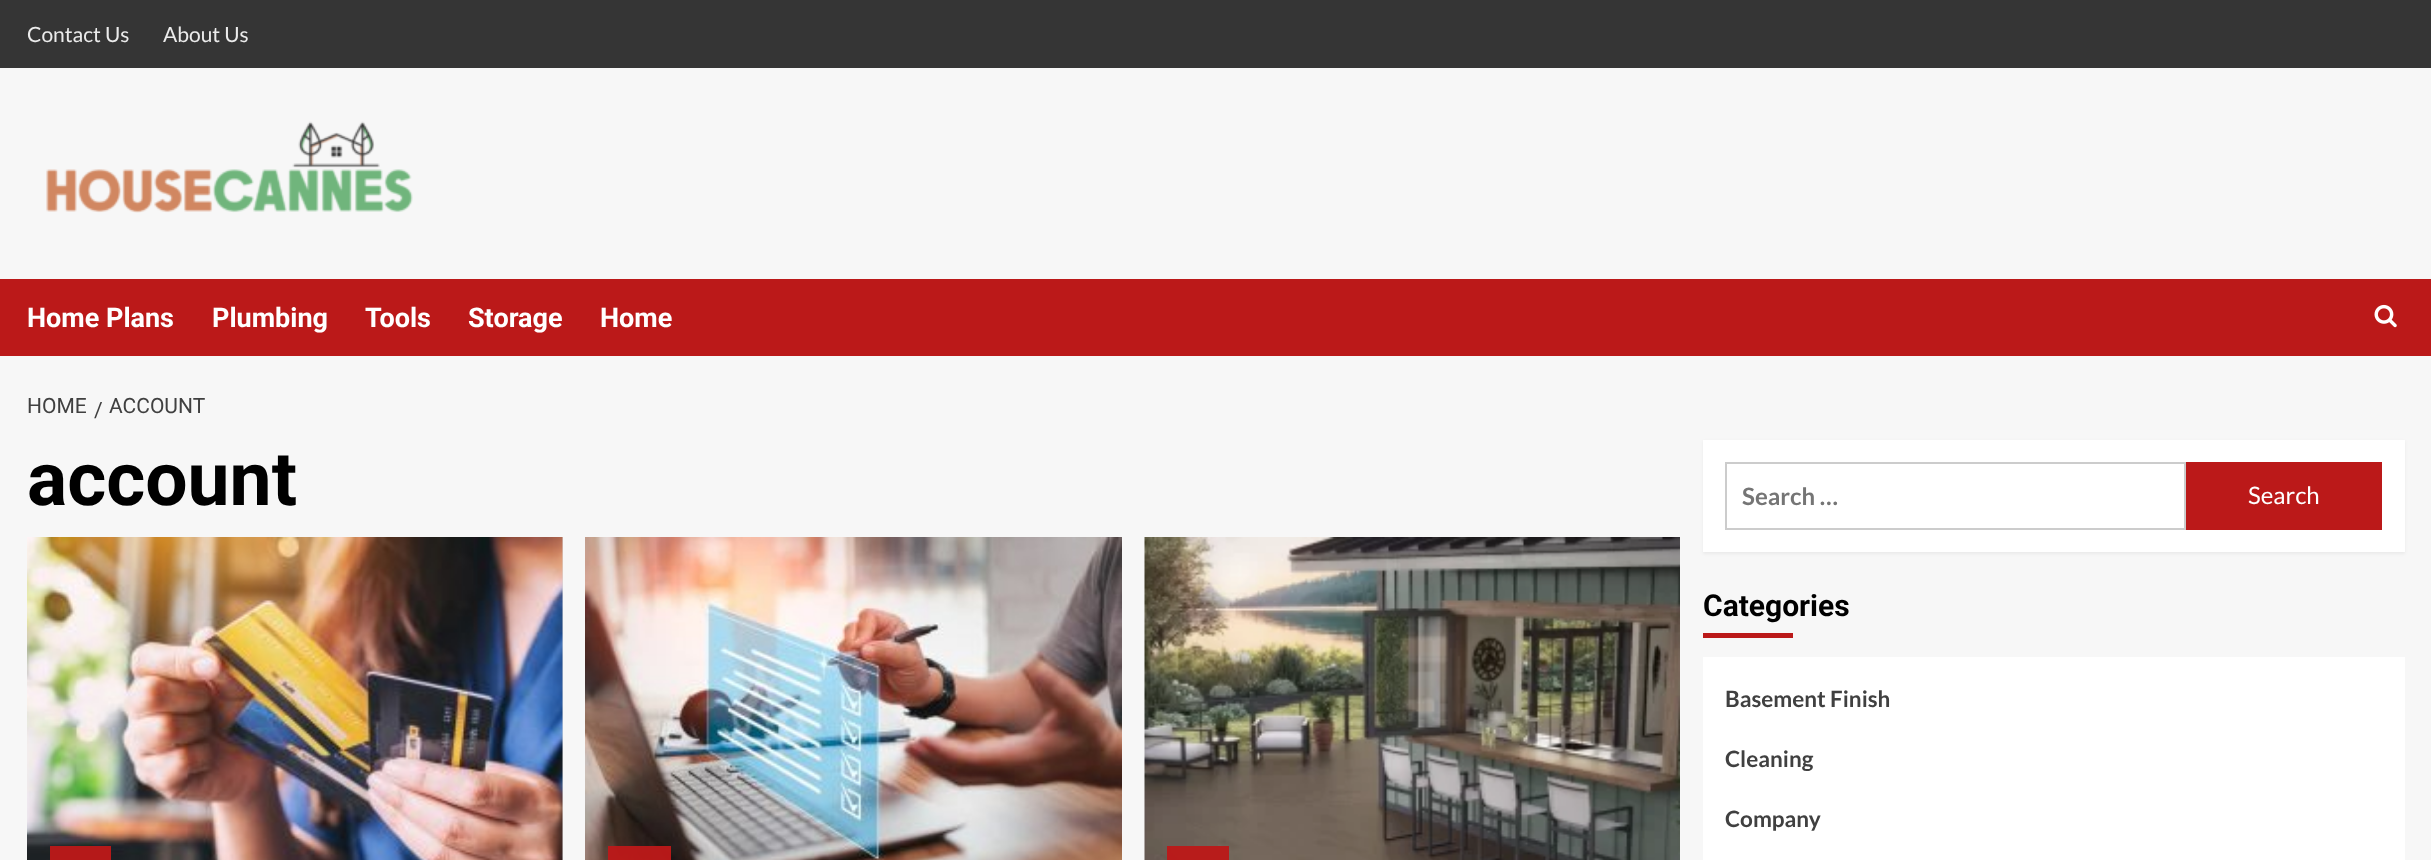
<svg xmlns="http://www.w3.org/2000/svg" width="2431" height="860">
	<rect width="100%" height="100%" fill="#F7F7F7" />
	<rect x="0" y="0" width="2431" height="68" fill="#353535" />
	<g font-family="Lato" font-size="21" fill="#EBEBEB">
		<text x="27" y="42">Contact Us</text>
		<text x="163" y="42">About Us</text>
	</g>
	<image x="46" y="121" width="367" height="92" href="assets/img1.png" />
	<rect x="0" y="279" width="2431" height="77" fill="#BB1919" />
	<g font-family="Roboto" font-size="27" font-weight="700" fill="#FFFFFF">
		<text x="27" y="327">Home Plans</text>
		<text x="212" y="327">Plumbing</text>
		<text x="365" y="327">Tools</text>
		<text x="468" y="327">Storage</text>
		<text x="600" y="327">Home</text>
	</g>
	<image x="2374" y="304" width="23" height="24" href="assets/img2.png" />
	<g font-family="Roboto" font-size="21" fill="#404040">
		<text x="27" y="413">HOME</text>
		<text x="94" y="417">/</text>
		<text x="109" y="413">ACCOUNT</text>
	</g>
	<text x="27" y="505" font-family="Roboto" font-size="75" font-weight="700" fill="#000000">account</text>
	<rect x="562" y="537" width="1" height="323" fill="#D8D8D8" />
	<image x="27" y="537" width="536" height="323" href="assets/img3.png" />
	<rect x="50" y="846" width="61" height="14" fill="#BB1919" fill-opacity="0.96" />
	<image x="585" y="537" width="537" height="323" href="assets/img4.png" />
	<rect x="608" y="846" width="63" height="14" fill="#BB1919" fill-opacity="0.96" />
	<image x="1144" y="537" width="536" height="323" href="assets/img5.png" />
	<rect x="1167" y="846" width="62" height="14" fill="#BB1919" fill-opacity="0.96" />
	<rect x="1703" y="441" width="702" height="113" fill="#000000" fill-opacity="0.05" filter="blur(1.5px)" />
	<rect x="1703" y="440" width="702" height="112" fill="#FFFFFF" />
	<rect x="1726" y="463" width="459" height="66" fill="none" stroke="#CCCCCC" stroke-width="2" />
	<text x="1742" y="505" font-family="Lato" font-size="24" font-weight="700" fill="#757575">Search …</text>
	<rect x="2186" y="462" width="196" height="68" fill="#BB1919" />
	<text x="2248" y="504" font-family="Lato" font-size="24" fill="#FFFFFF">Search</text>
	<text x="1703" y="616" font-family="Roboto" font-size="30" font-weight="700" fill="#000000">Categories</text>
	<rect x="1703" y="633" width="90" height="5" fill="#BB1919" />
	<rect x="1703" y="657" width="702" height="203" fill="#FFFFFF" />
	<g font-family="Lato" font-size="22.5" font-weight="700" fill="#404040">
		<text x="1725" y="707">Basement Finish</text>
		<text x="1725" y="767">Cleaning</text>
		<text x="1725" y="827">Company</text>
	</g>
</svg>
